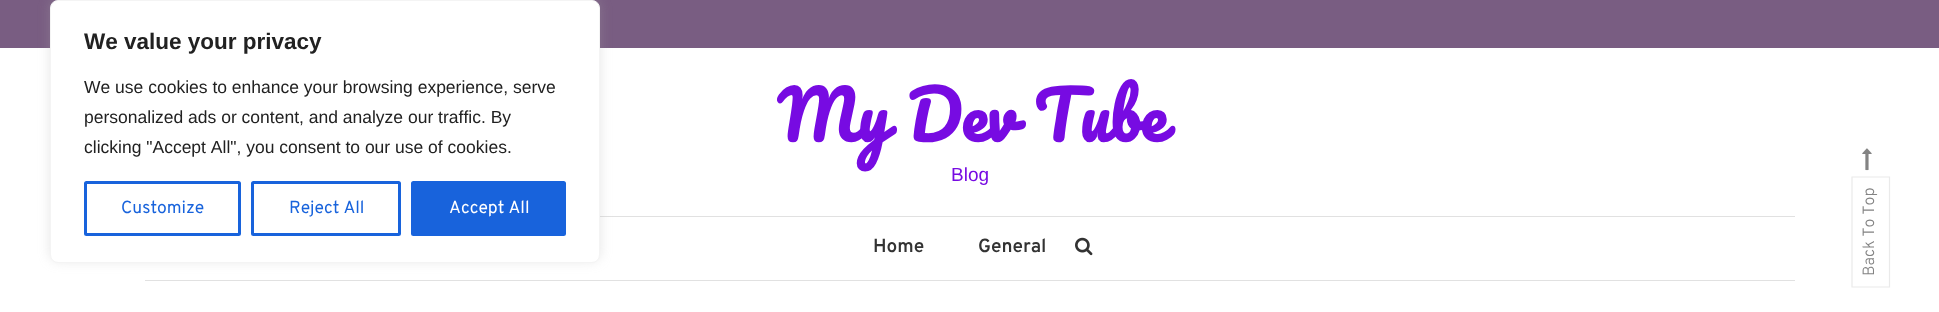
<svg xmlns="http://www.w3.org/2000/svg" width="1939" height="312">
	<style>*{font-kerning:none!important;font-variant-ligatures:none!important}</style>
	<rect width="100%" height="100%" fill="#FFFFFF" />
	<rect x="0" y="0" width="1939" height="48" fill="#795D82" />
	<rect x="600" y="216" width="1195" height="1" fill="#E1E1E1" />
	<rect x="50" y="-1" width="550" height="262" rx="8" fill="#ACABAB" fill-opacity="0.3" filter="blur(6px)" />
	<rect x="50.5" y="0.5" width="549" height="262" rx="7.5" fill="#FFFFFF" stroke="#F4F4F4" />
	<text x="84" y="49" font-family="Liberation Sans" font-size="22.5" font-weight="700" fill="#212121">We value your privacy</text>
	<g font-family="Liberation Sans" font-size="17.5" fill="#212121">
		<text x="84" y="93">We use cookies to enhance your browsing experience, serve</text>
		<text x="84" y="123">personalized ads or content, and analyze our traffic. By</text>
		<text x="84" y="153">clicking "Accept All", you consent to our use of cookies.</text>
	</g>
	<rect x="85.5" y="182.5" width="154" height="52" rx="1" fill="none" stroke="#1863DC" stroke-width="3" />
	<text x="121" y="213" font-family="Overpass" font-size="17.5" fill="#1863DC">Customize</text>
	<rect x="252.5" y="182.5" width="147" height="52" rx="1" fill="none" stroke="#1863DC" stroke-width="3" />
	<text x="289" y="213" font-family="Overpass" font-size="17.5" fill="#1863DC">Reject All</text>
	<rect x="412.5" y="182.5" width="152" height="52" rx="1" fill="#1863DC" stroke="#1863DC" stroke-width="3" />
	<text x="449" y="213" font-family="Overpass" font-size="17.5" fill="#FFFFFF">Accept All</text>
	<text x="777" y="142" word-spacing="1" font-family="Pacifico" font-size="65" font-weight="700" fill="#770BE2">My Dev Tube</text>
	<text x="951" y="181" font-family="Liberation Sans" font-size="19" fill="#770BE2">Blog</text>
	<rect x="145" y="280" width="1650" height="1" fill="#E1E1E1" />
	<g font-family="Overpass" font-size="19" font-weight="600" fill="#333333">
		<text x="873" y="252">Home</text>
		<text x="978" y="252">General</text>
	</g>
	<image x="1075" y="237" width="18" height="19" href="assets/img1.png" />
	<path d="M1852 287V177H1889.5V287Z" fill="none" stroke="#EAEAEA" stroke-width="1.2" />
	<image x="1862" y="148" width="10" height="23" href="assets/img2.png" />
	<text x="1874" y="276" transform="rotate(-90 1874 276)" font-family="Overpass" font-size="16.25" font-weight="300" fill="#838383">Back To Top</text>
</svg>
